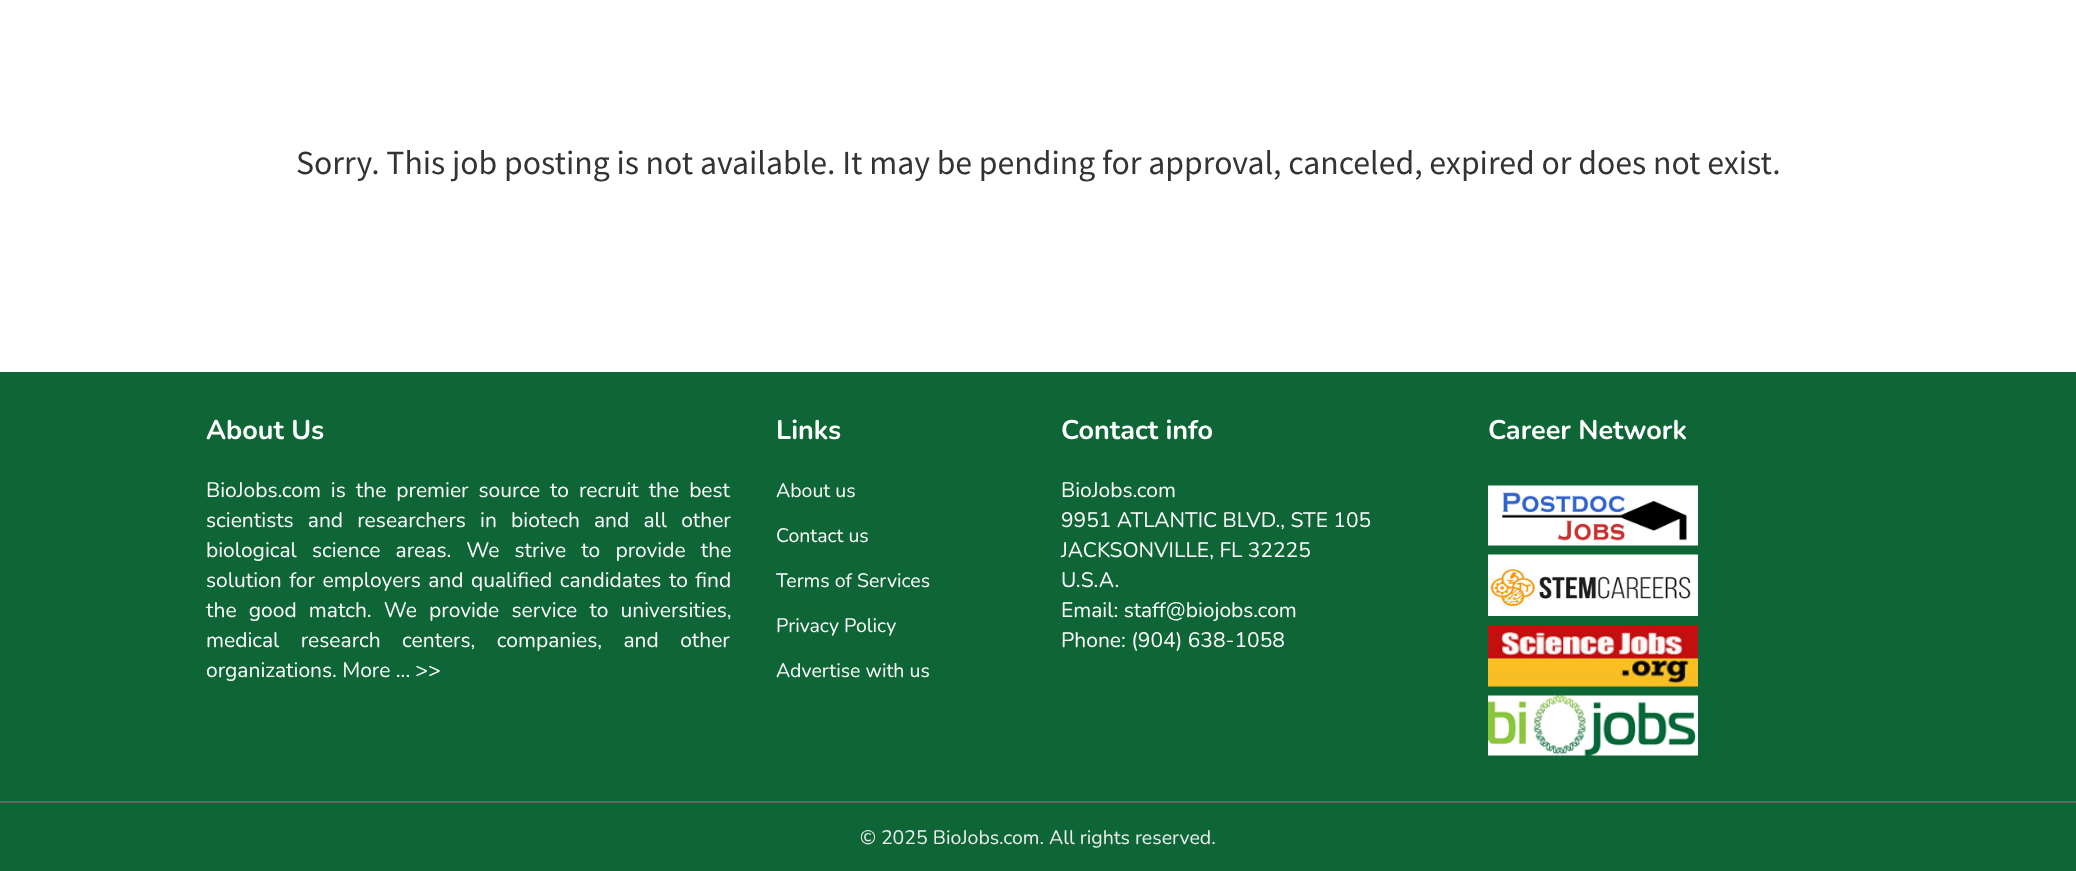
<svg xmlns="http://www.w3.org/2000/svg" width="2076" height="871">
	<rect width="100%" height="100%" fill="#FFFFFF" />
	<text x="296" y="174" font-family="Source Sans Pro" font-size="33.75" fill="#333333">Sorry. This job posting is not available. It may be pending for approval, canceled, expired or does not exist.</text>
	<rect x="0" y="372" width="2076" height="499" fill="#0E6637" />
	<text x="206" y="439" font-family="Nunito" font-size="27" font-weight="700" fill="#FFFFFF">About Us</text>
	<g font-family="Nunito" font-size="21" fill="#FFFFFF">
		<text x="206" y="497" word-spacing="4.5">BioJobs.com is the premier source to recruit the best</text>
		<text x="206" y="527" word-spacing="8.75">scientists and researchers in biotech and all other</text>
		<text x="206" y="557" word-spacing="9.75">biological science areas. We strive to provide the</text>
		<text x="206" y="587" word-spacing="2">solution for employers and qualified candidates to find</text>
		<text x="206" y="617" word-spacing="6.75">the good match. We provide service to universities,</text>
		<text x="206" y="647" word-spacing="16">medical research centers, companies, and other</text>
		<text x="206" y="677">organizations. More ... &gt;&gt;</text>
	</g>
	<text x="776" y="439" font-family="Nunito" font-size="27" font-weight="700" fill="#FFFFFF">Links</text>
	<g font-family="Nunito" font-size="19.5" fill="#FFFFFF">
		<text x="776" y="497">About us</text>
		<text x="776" y="542">Contact us</text>
		<text x="776" y="587">Terms of Services</text>
		<text x="776" y="632">Privacy Policy</text>
		<text x="776" y="677">Advertise with us</text>
	</g>
	<text x="1061" y="439" font-family="Nunito" font-size="27" font-weight="700" fill="#FFFFFF">Contact info</text>
	<g font-family="Nunito" font-size="21" fill="#FFFFFF">
		<text x="1061" y="497">BioJobs.com</text>
		<text x="1061" y="527">9951 ATLANTIC BLVD., STE 105</text>
		<text x="1061" y="557">JACKSONVILLE, FL 32225</text>
		<text x="1061" y="587">U.S.A.</text>
		<text x="1061" y="617">Email: staff@biojobs.com</text>
		<text x="1061" y="647">Phone: (904) 638-1058</text>
	</g>
	<text x="1488" y="439" font-family="Nunito" font-size="27" font-weight="700" fill="#FFFFFF">Career Network</text>
	<image x="1488" y="485" width="210" height="61" href="assets/img1.png" />
	<image x="1488" y="554" width="210" height="62" href="assets/img2.png" />
	<image x="1488" y="625" width="210" height="62" href="assets/img3.png" />
	<image x="1488" y="695" width="210" height="61" href="assets/img4.png" />
	<rect x="0" y="801" width="2076" height="2" fill="#666666" />
	<text x="860" y="844" font-family="Nunito" font-size="19.5" fill="#EEEEEE">© 2025 BioJobs.com. All rights reserved.</text>
</svg>
